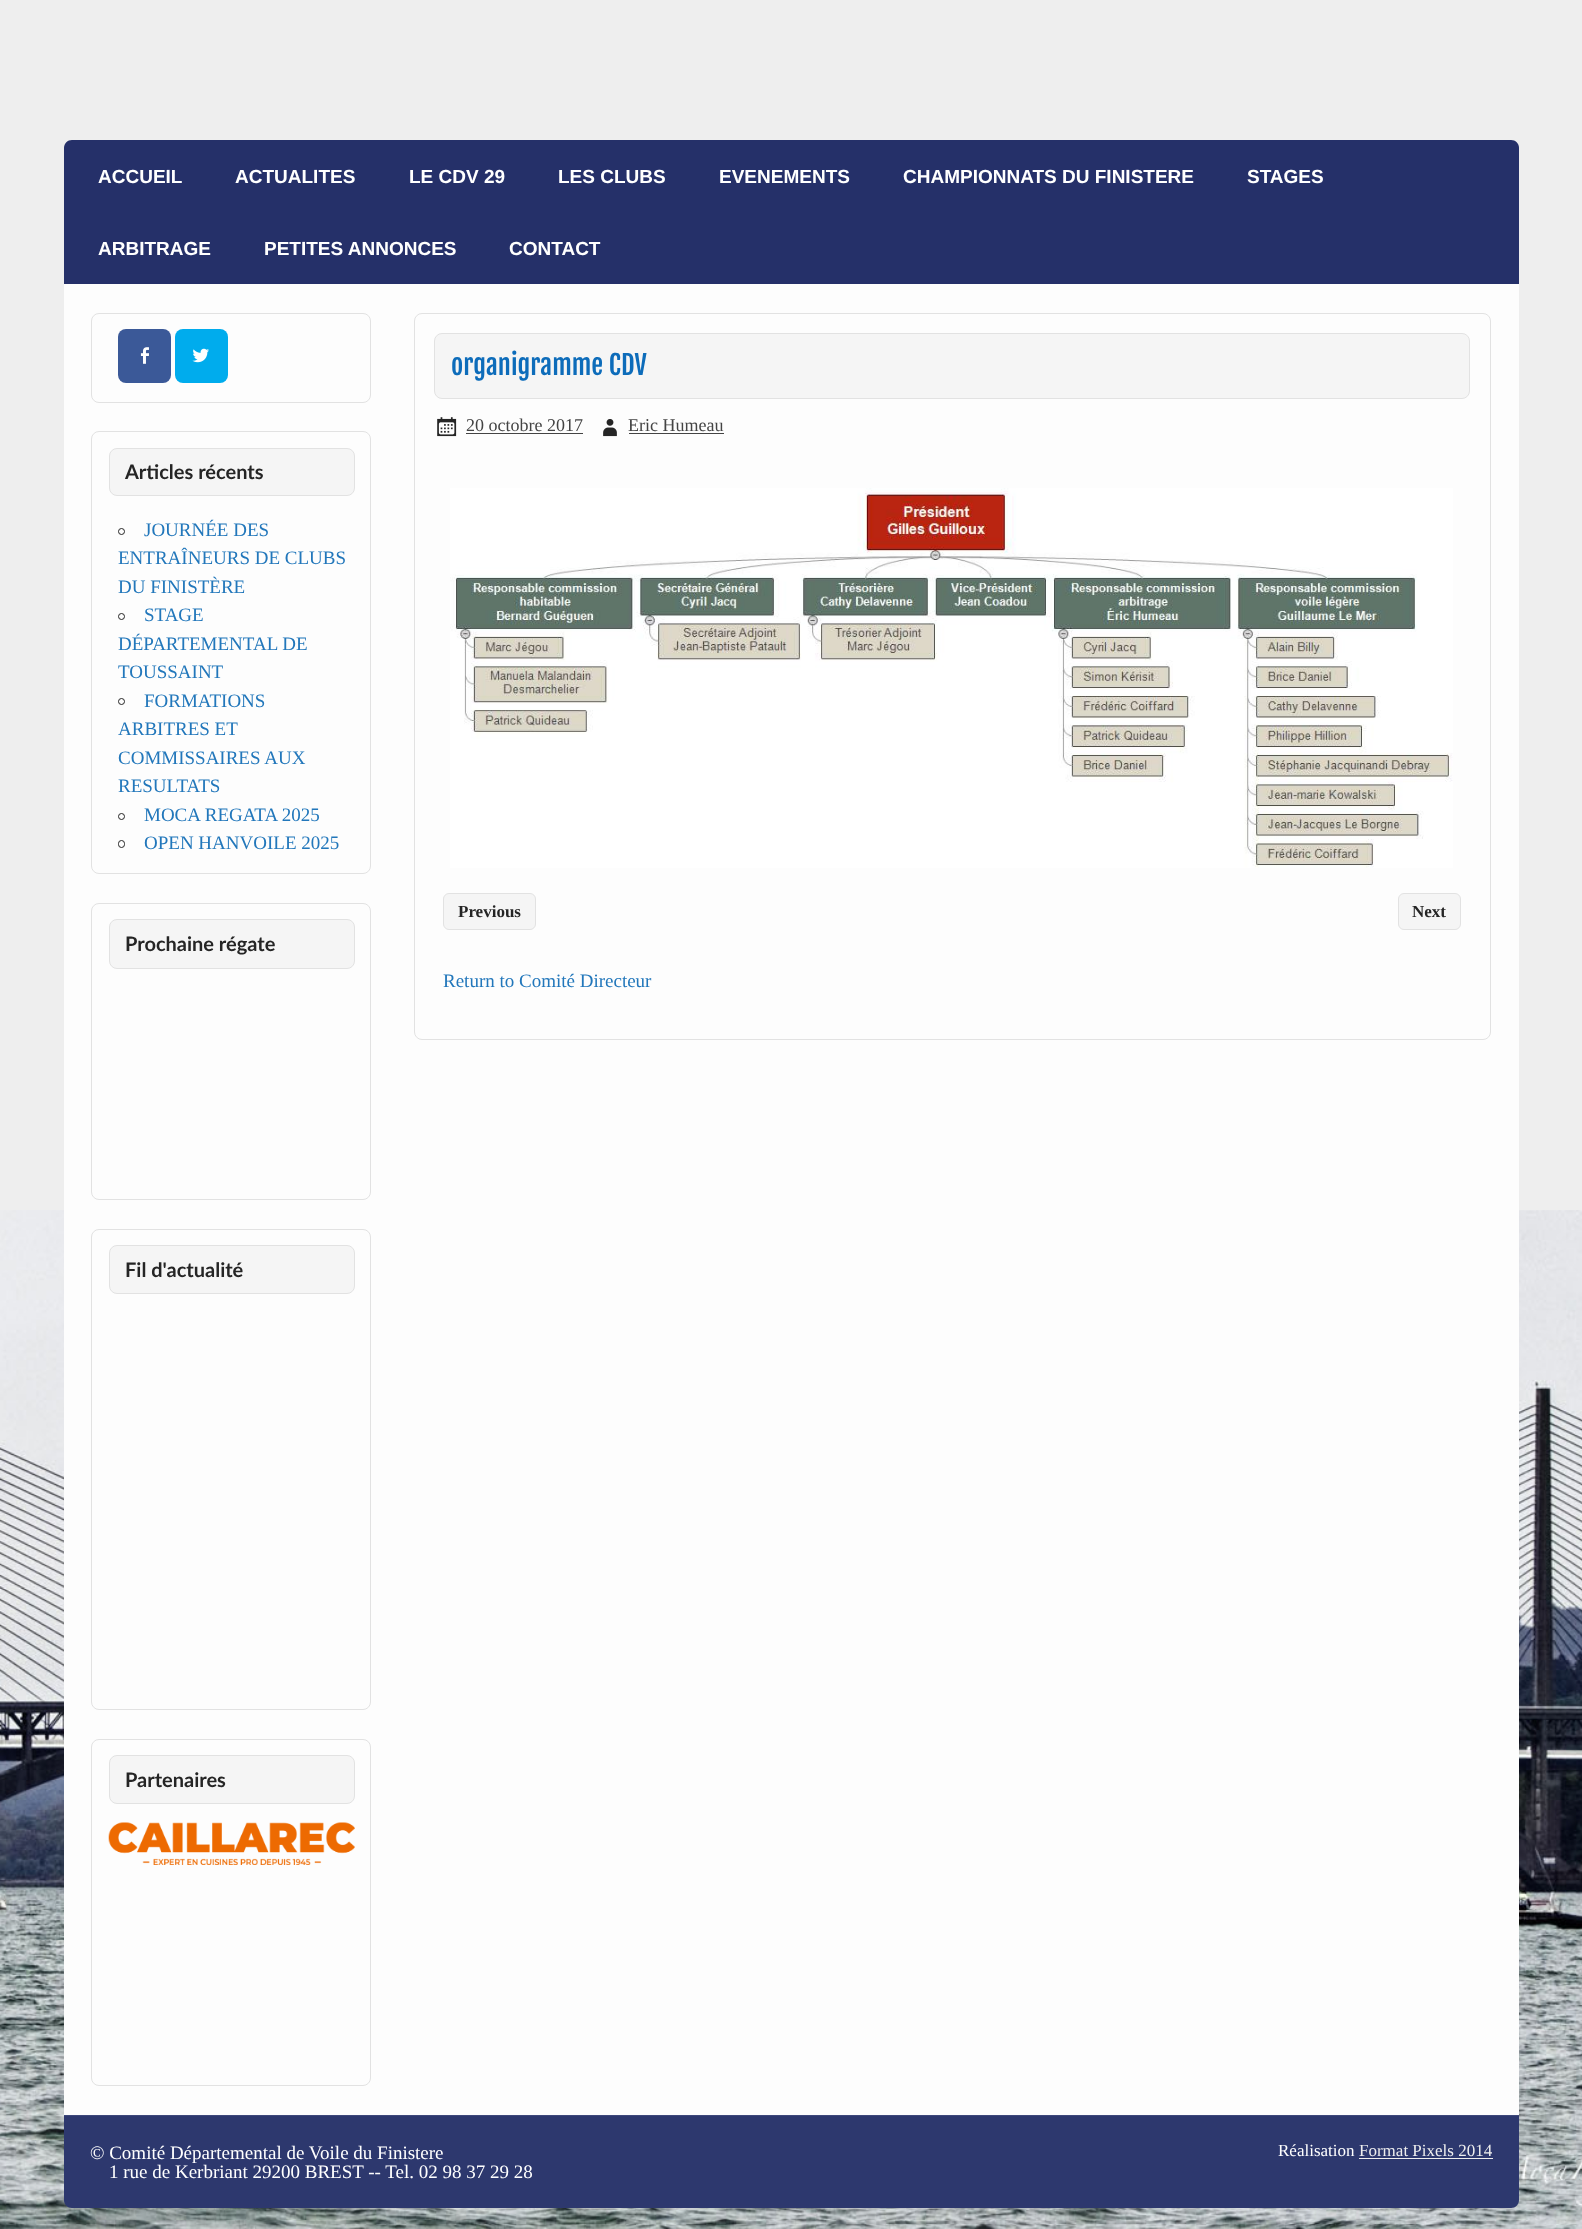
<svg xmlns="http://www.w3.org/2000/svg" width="1582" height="2229">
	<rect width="100%" height="100%" fill="#EEEEEE" />
	<image x="0" y="1210" width="1582" height="1019" href="assets/img1.png" />
	<path d="M72 140H1511C1515.5 140 1519 143.5 1519 148V284H64V148C64 143.5 67.5 140 72 140Z" fill="#253069" />
	<g font-family="Liberation Sans" font-size="19" font-weight="700" fill="#FFFFFF">
		<text x="98" y="183">ACCUEIL</text>
		<text x="235" y="183">ACTUALITES</text>
		<text x="409" y="183">LE CDV 29</text>
		<text x="558" y="183">LES CLUBS</text>
		<text x="719" y="183">EVENEMENTS</text>
		<text x="903" y="183">CHAMPIONNATS DU FINISTERE</text>
		<text x="1247" y="183">STAGES</text>
		<text x="98" y="255">ARBITRAGE</text>
		<text x="264" y="255">PETITES ANNONCES</text>
		<text x="509" y="255">CONTACT</text>
	</g>
	<rect x="64" y="284" width="1455" height="1831" fill="#FDFDFD" />
	<rect x="91.5" y="313.5" width="279" height="89" rx="7.5" fill="none" stroke="#E2E2E2" />
	<rect x="118" y="329" width="53" height="54" rx="8" fill="#3B5998" />
	<image x="140" y="347" width="9" height="17" href="assets/img2.png" />
	<rect x="175" y="329" width="53" height="54" rx="8" fill="#00ACED" />
	<image x="192" y="348" width="17" height="15" href="assets/img3.png" />
	<rect x="91.5" y="431.5" width="279" height="442" rx="7.5" fill="none" stroke="#E2E2E2" />
	<rect x="109.5" y="448.5" width="245" height="47" rx="7.5" fill="#F5F5F5" stroke="#E2E2E2" />
	<text x="125" y="479" font-family="Lato" font-size="20" font-weight="700" fill="#252525">Articles récents</text>
	<circle cx="121.5" cy="531.5" r="3" fill="none" stroke="#252525" />
	<g font-family="Liberation Serif" font-size="19" fill="#2277BB">
		<text x="144" y="536">JOURNÉE DES</text>
		<text x="118" y="564">ENTRAÎNEURS DE CLUBS</text>
		<text x="118" y="593">DU FINISTÈRE</text>
	</g>
	<circle cx="121.5" cy="616.5" r="3" fill="none" stroke="#252525" />
	<g font-family="Liberation Serif" font-size="19" fill="#2277BB">
		<text x="144" y="621">STAGE</text>
		<text x="118" y="650">DÉPARTEMENTAL DE</text>
		<text x="118" y="678">TOUSSAINT</text>
	</g>
	<circle cx="121.5" cy="701.5" r="3" fill="none" stroke="#252525" />
	<g font-family="Liberation Serif" font-size="19" fill="#2277BB">
		<text x="144" y="707">FORMATIONS</text>
		<text x="118" y="735">ARBITRES ET</text>
		<text x="118" y="764">COMMISSAIRES AUX</text>
		<text x="118" y="792">RESULTATS</text>
	</g>
	<circle cx="121.5" cy="816.5" r="3" fill="none" stroke="#252525" />
	<text x="144" y="821" font-family="Liberation Serif" font-size="19" fill="#2277BB">MOCA REGATA 2025</text>
	<rect x="118.5" y="840.5" width="6" height="7" rx="3" fill="none" stroke="#252525" />
	<text x="144" y="849" font-family="Liberation Serif" font-size="19" fill="#2277BB">OPEN HANVOILE 2025</text>
	<rect x="91.5" y="903.5" width="279" height="296" rx="7.5" fill="none" stroke="#E2E2E2" />
	<rect x="109.5" y="919.5" width="245" height="49" rx="7.5" fill="#F5F5F5" stroke="#E2E2E2" />
	<text x="125" y="951" font-family="Lato" font-size="20" font-weight="700" fill="#252525">Prochaine régate</text>
	<rect x="91.5" y="1229.5" width="279" height="480" rx="7.5" fill="none" stroke="#E2E2E2" />
	<rect x="109.5" y="1245.5" width="245" height="48" rx="7.5" fill="#F5F5F5" stroke="#E2E2E2" />
	<text x="125" y="1277" font-family="Lato" font-size="20" font-weight="700" fill="#252525">Fil d'actualité</text>
	<rect x="91.5" y="1739.5" width="279" height="346" rx="7.5" fill="none" stroke="#E2E2E2" />
	<rect x="109.5" y="1755.5" width="245" height="48" rx="7.5" fill="#F5F5F5" stroke="#E2E2E2" />
	<text x="125" y="1787" font-family="Lato" font-size="20" font-weight="700" fill="#252525">Partenaires</text>
	<image x="108" y="1822" width="247" height="43" href="assets/img4.png" />
	<rect x="414.5" y="313.5" width="1076" height="726" rx="7.5" fill="none" stroke="#E2E2E2" />
	<rect x="434.5" y="333.5" width="1035" height="65" rx="7.5" fill="#F5F5F5" stroke="#E2E2E2" />
	<text x="451" y="375" font-family="Fjalla One" font-size="26.5" fill="#0D6CBA">organigramme CDV</text>
	<image x="437" y="417" width="20" height="20" href="assets/img5.png" />
	<text x="466" y="431" font-family="Liberation Serif" font-size="18" fill="#444444">20 octobre 2017</text>
	<rect x="466" y="433" width="117" height="1" fill="#444444" />
	<image x="603" y="419" width="14" height="18" href="assets/img6.png" />
	<text x="628" y="431" font-family="Liberation Serif" font-size="18" fill="#444444">Eric Humeau</text>
	<rect x="629" y="433" width="95" height="1" fill="#444444" />
	<image x="450" y="488" width="1003" height="380" href="assets/img7.png" />
	<rect x="443.5" y="893.5" width="92" height="36" rx="5.5" fill="#F5F5F5" stroke="#E2E2E2" />
	<text x="458" y="917" font-family="Liberation Serif" font-size="17" font-weight="700" fill="#252525">Previous</text>
	<rect x="1398.5" y="893.5" width="62" height="36" rx="5.5" fill="#F5F5F5" stroke="#E2E2E2" />
	<text x="1412" y="917" font-family="Liberation Serif" font-size="17" font-weight="700" fill="#252525">Next</text>
	<text x="443" y="987" font-family="Liberation Serif" font-size="19" fill="#2277BB">Return to Comité Directeur</text>
	<path d="M64 2115H1519V2200C1519 2204.5 1515.5 2208 1511 2208H72C67.5 2208 64 2204.5 64 2200Z" fill="#253069" />
	<rect x="64" y="2116" width="1455" height="92" fill="#FFFFFF" fill-opacity="0.04" />
	<rect x="64" y="2115" width="1455" height="1" fill="#3E487B" />
	<text x="90" y="2159" font-family="Liberation Serif" font-size="19" fill="#FFFFFF">© Comité Départemental de Voile du Finistere</text>
	<text x="1278" y="2156" font-family="Liberation Serif" font-size="17" fill="#FFFFFF">Réalisation</text>
	<text x="1359" y="2156" font-family="Liberation Serif" font-size="17" fill="#EEEEEE">Format Pixels 2014</text>
	<rect x="1359" y="2158" width="134" height="1" fill="#EEEEEE" />
	<text x="109" y="2178" font-family="Liberation Serif" font-size="19" fill="#FFFFFF">1 rue de Kerbriant 29200 BREST -- Tel. 02 98 37 29 28</text>
</svg>
